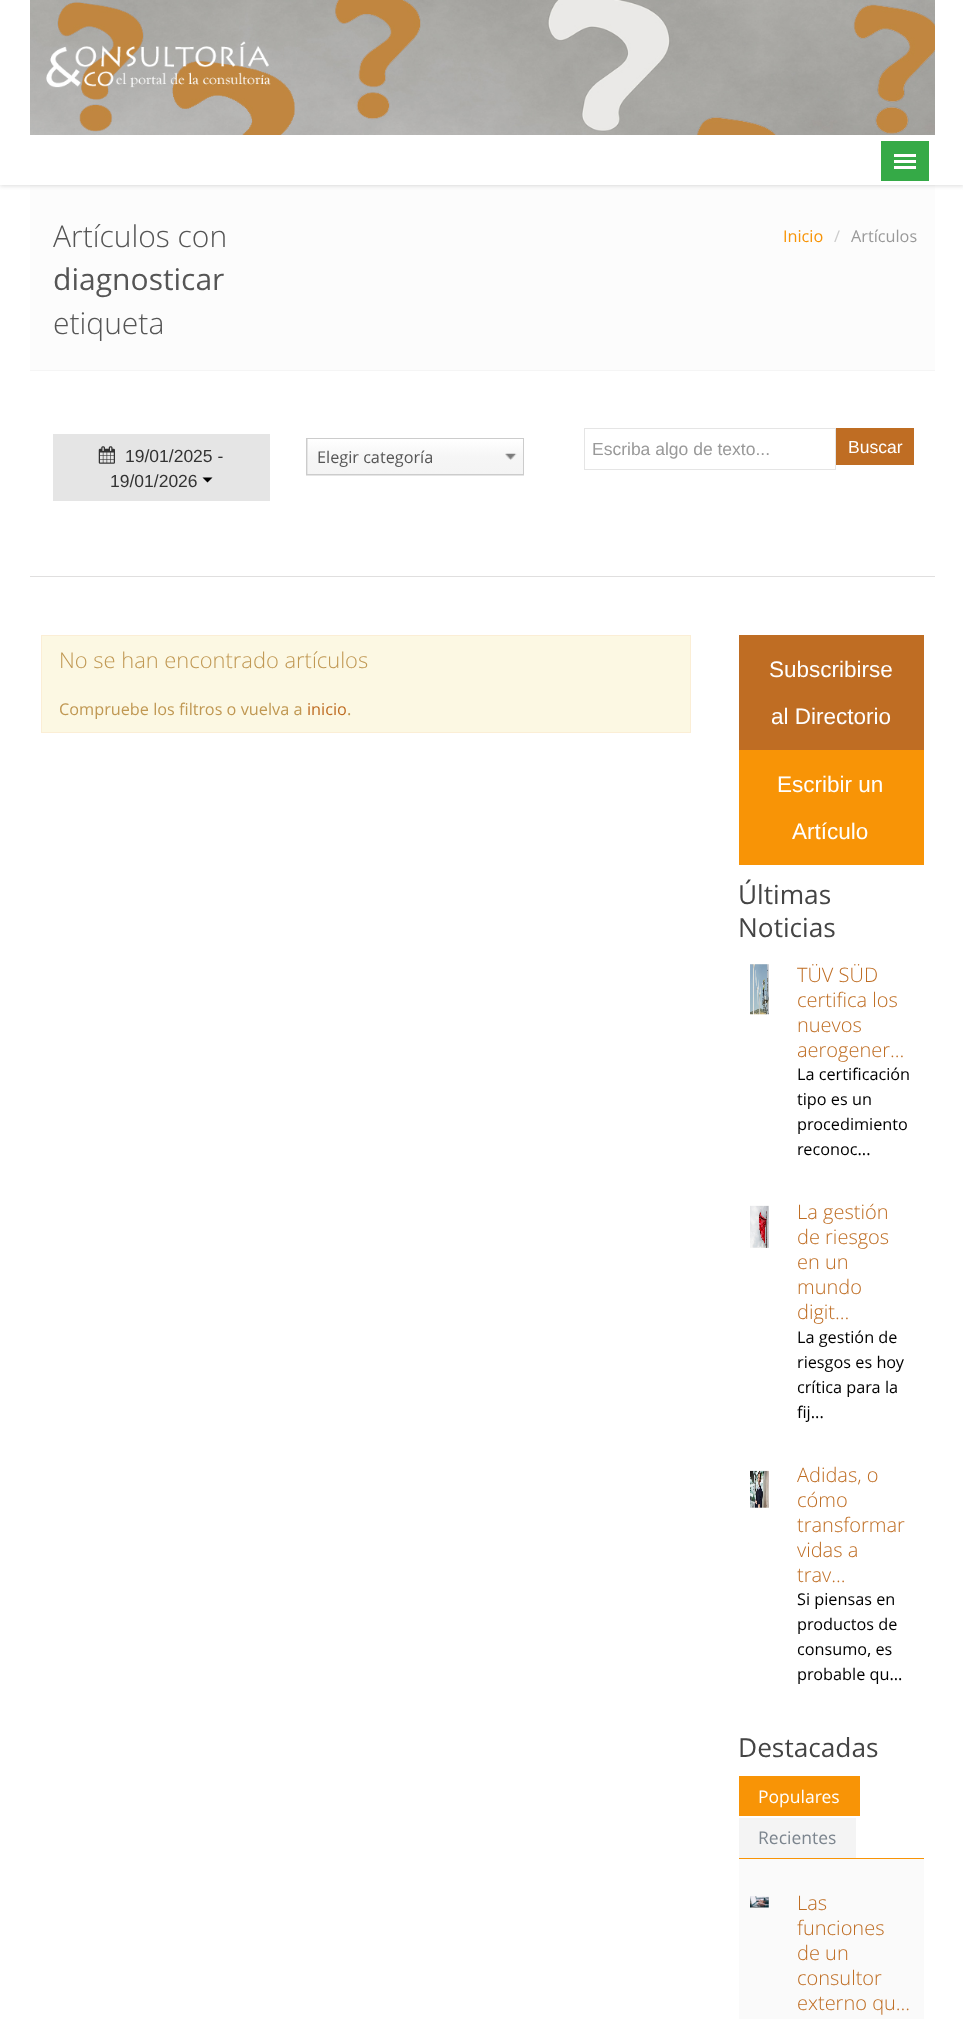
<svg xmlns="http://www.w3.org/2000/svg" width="963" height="2019">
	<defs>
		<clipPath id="clip1"><rect x="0" y="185" width="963" height="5" /></clipPath>
		<linearGradient id="g1" gradientUnits="userSpaceOnUse" x1="415" y1="439" x2="415" y2="474"><stop offset="0" stop-color="#FFFFFF" /><stop offset="0.5" stop-color="#F6F6F6" /><stop offset="1" stop-color="#F4F4F4" /></linearGradient>
	</defs>
	<rect width="100%" height="100%" fill="#FFFFFF" />
	<rect x="30" y="186" width="905" height="184" fill="#FCFCFC" />
	<rect x="30" y="185" width="905" height="1" fill="#F5F5F5" />
	<g clip-path="url(#clip1)">
		<rect x="0" y="1" width="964" height="185" fill="#DDDDDD" filter="blur(2px)" />
	</g>
	<image x="30" y="0" width="905" height="135" href="assets/img1.png" />
	<rect x="881" y="141" width="48" height="40" fill="#35AA47" />
	<rect x="894" y="154" width="22" height="3" fill="#FFFFFF" />
	<rect x="894" y="160" width="22" height="3" fill="#FFFFFF" />
	<rect x="894" y="166" width="22" height="3" fill="#FFFFFF" />
	<rect x="30" y="370" width="905" height="1" fill="#F5F5F5" />
	<text x="53" y="247" font-family="Open Sans" font-size="30" font-weight="300" fill="#555555">Artículos con</text>
	<text x="53" y="290" font-family="Open Sans" font-size="30" fill="#555555">diagnosticar</text>
	<text x="53" y="334" font-family="Open Sans" font-size="30" font-weight="300" fill="#555555">etiqueta</text>
	<text x="783" y="242" font-family="Open Sans" font-size="16.25" fill="#F89406">Inicio</text>
	<text x="834" y="242" font-family="Open Sans" font-size="16.25" fill="#CCCCCC">/</text>
	<text x="851" y="242" font-family="Open Sans" font-size="16.25" fill="#999999">Artículos</text>
	<rect x="53" y="434" width="217" height="67" fill="#E5E5E5" />
	<image x="98" y="446" width="17" height="18" href="assets/img2.png" />
	<g font-family="Liberation Sans" font-size="17.5" fill="#333333">
		<text x="125" y="462">19/01/2025 -</text>
		<text x="110" y="487">19/01/2026</text>
	</g>
	<path d="M202.5 477.5H212.5L207.5 482.5Z" fill="#000000" />
	<rect x="306" y="439" width="218" height="37" fill="#000000" fill-opacity="0.1" filter="blur(0.5px)" />
	<rect x="308" y="439" width="215" height="35" fill="url(#g1)" />
	<rect x="306.5" y="438.5" width="217" height="36" fill="none" stroke="#CCCCCC" />
	<text x="317" y="463" font-family="Open Sans" font-size="16.25" fill="#555555">Elegir categoría</text>
	<image x="505" y="453" width="12" height="7" href="assets/img3.png" />
	<rect x="584.5" y="428.5" width="251" height="41" fill="none" stroke="#E5E5E5" />
	<text x="592" y="455" font-family="Liberation Sans" font-size="17.5" fill="#999999">Escriba algo de texto...</text>
	<rect x="836" y="428" width="78" height="37" fill="#BF6D23" />
	<text x="848" y="453" font-family="Liberation Sans" font-size="17.5" fill="#FFFFFF">Buscar</text>
	<rect x="30" y="576" width="905" height="1" fill="#E0DFDF" />
	<rect x="41.5" y="635.5" width="649" height="97" fill="#FCF8E3" stroke="#FBEED5" />
	<text x="59" y="668" font-family="Open Sans" font-size="21.9" font-weight="300" fill="#C09853">No se han encontrado artículos</text>
	<text x="59" y="715" font-family="Open Sans" font-size="16.25" fill="#C09853">Compruebe los filtros o vuelva a</text>
	<text x="307" y="715" font-family="Open Sans" font-size="16.25" fill="#BF6D23">inicio</text>
	<text x="347" y="715" font-family="Open Sans" font-size="16.25" fill="#C09853">.</text>
	<rect x="739" y="635" width="185" height="115" fill="#BF6D23" />
	<g font-family="Liberation Sans" font-size="22.5" fill="#FFFFFF">
		<text x="769" y="677">Subscribirse</text>
		<text x="771" y="724">al Directorio</text>
	</g>
	<rect x="739" y="750" width="185" height="115" fill="#F89406" />
	<g font-family="Liberation Sans" font-size="22.5" fill="#FFFFFF">
		<text x="777" y="792">Escribir un</text>
		<text x="792" y="839">Artículo</text>
	</g>
	<g font-family="Open Sans" font-size="26.25" fill="#444444">
		<text x="738" y="904">Últimas</text>
		<text x="738" y="937">Noticias</text>
	</g>
	<image x="750" y="964" width="19" height="51" href="assets/img4.png" />
	<g font-family="Open Sans" font-size="20" font-weight="300" fill="#BF6D23">
		<text x="797" y="982">TÜV SÜD</text>
		<text x="797" y="1007">certifica los</text>
		<text x="797" y="1032">nuevos</text>
		<text x="797" y="1057">aerogener...</text>
	</g>
	<g font-family="Open Sans" font-size="16.25" fill="#000000">
		<text x="797" y="1080">La certificación</text>
		<text x="797" y="1105">tipo es un</text>
		<text x="797" y="1130">procedimiento</text>
		<text x="797" y="1155">reconoc...</text>
	</g>
	<image x="750" y="1205" width="19" height="43" href="assets/img5.png" />
	<g font-family="Open Sans" font-size="20" font-weight="300" fill="#BF6D23">
		<text x="797" y="1219">La gestión</text>
		<text x="797" y="1244">de riesgos</text>
		<text x="797" y="1269">en un</text>
		<text x="797" y="1294">mundo</text>
		<text x="797" y="1319">digit...</text>
	</g>
	<g font-family="Open Sans" font-size="16.25" fill="#000000">
		<text x="797" y="1343">La gestión de</text>
		<text x="797" y="1368">riesgos es hoy</text>
		<text x="797" y="1393">crítica para la</text>
		<text x="797" y="1418">fij...</text>
	</g>
	<image x="750" y="1470" width="19" height="38" href="assets/img6.png" />
	<g font-family="Open Sans" font-size="20" font-weight="300" fill="#BF6D23">
		<text x="797" y="1482">Adidas, o</text>
		<text x="797" y="1507">cómo</text>
		<text x="797" y="1532">transformar</text>
		<text x="797" y="1557">vidas a</text>
		<text x="797" y="1582">trav...</text>
	</g>
	<g font-family="Open Sans" font-size="16.25" fill="#000000">
		<text x="797" y="1605">Si piensas en</text>
		<text x="797" y="1630">productos de</text>
		<text x="797" y="1655">consumo, es</text>
		<text x="797" y="1680">probable qu...</text>
	</g>
	<text x="738" y="1757" font-family="Open Sans" font-size="26.25" fill="#444444">Destacadas</text>
	<rect x="739" y="1858" width="185" height="1" fill="#F89406" />
	<rect x="739" y="1776" width="121" height="40" fill="#F89406" />
	<text x="758" y="1803" font-family="Open Sans" font-size="17.5" fill="#FFFFFF">Populares</text>
	<rect x="739" y="1818" width="117" height="40" fill="#F4F4F4" />
	<text x="758" y="1844" font-family="Open Sans" font-size="17.5" fill="#7C858E">Recientes</text>
	<rect x="739" y="1859" width="185" height="160" fill="#FAFAFA" />
	<image x="750" y="1896" width="19" height="12" href="assets/img7.png" />
	<g font-family="Open Sans" font-size="20" font-weight="300" fill="#BF6D23">
		<text x="797" y="1910">Las</text>
		<text x="797" y="1935">funciones</text>
		<text x="797" y="1960">de un</text>
		<text x="797" y="1985">consultor</text>
		<text x="797" y="2010">externo qu...</text>
	</g>
</svg>
